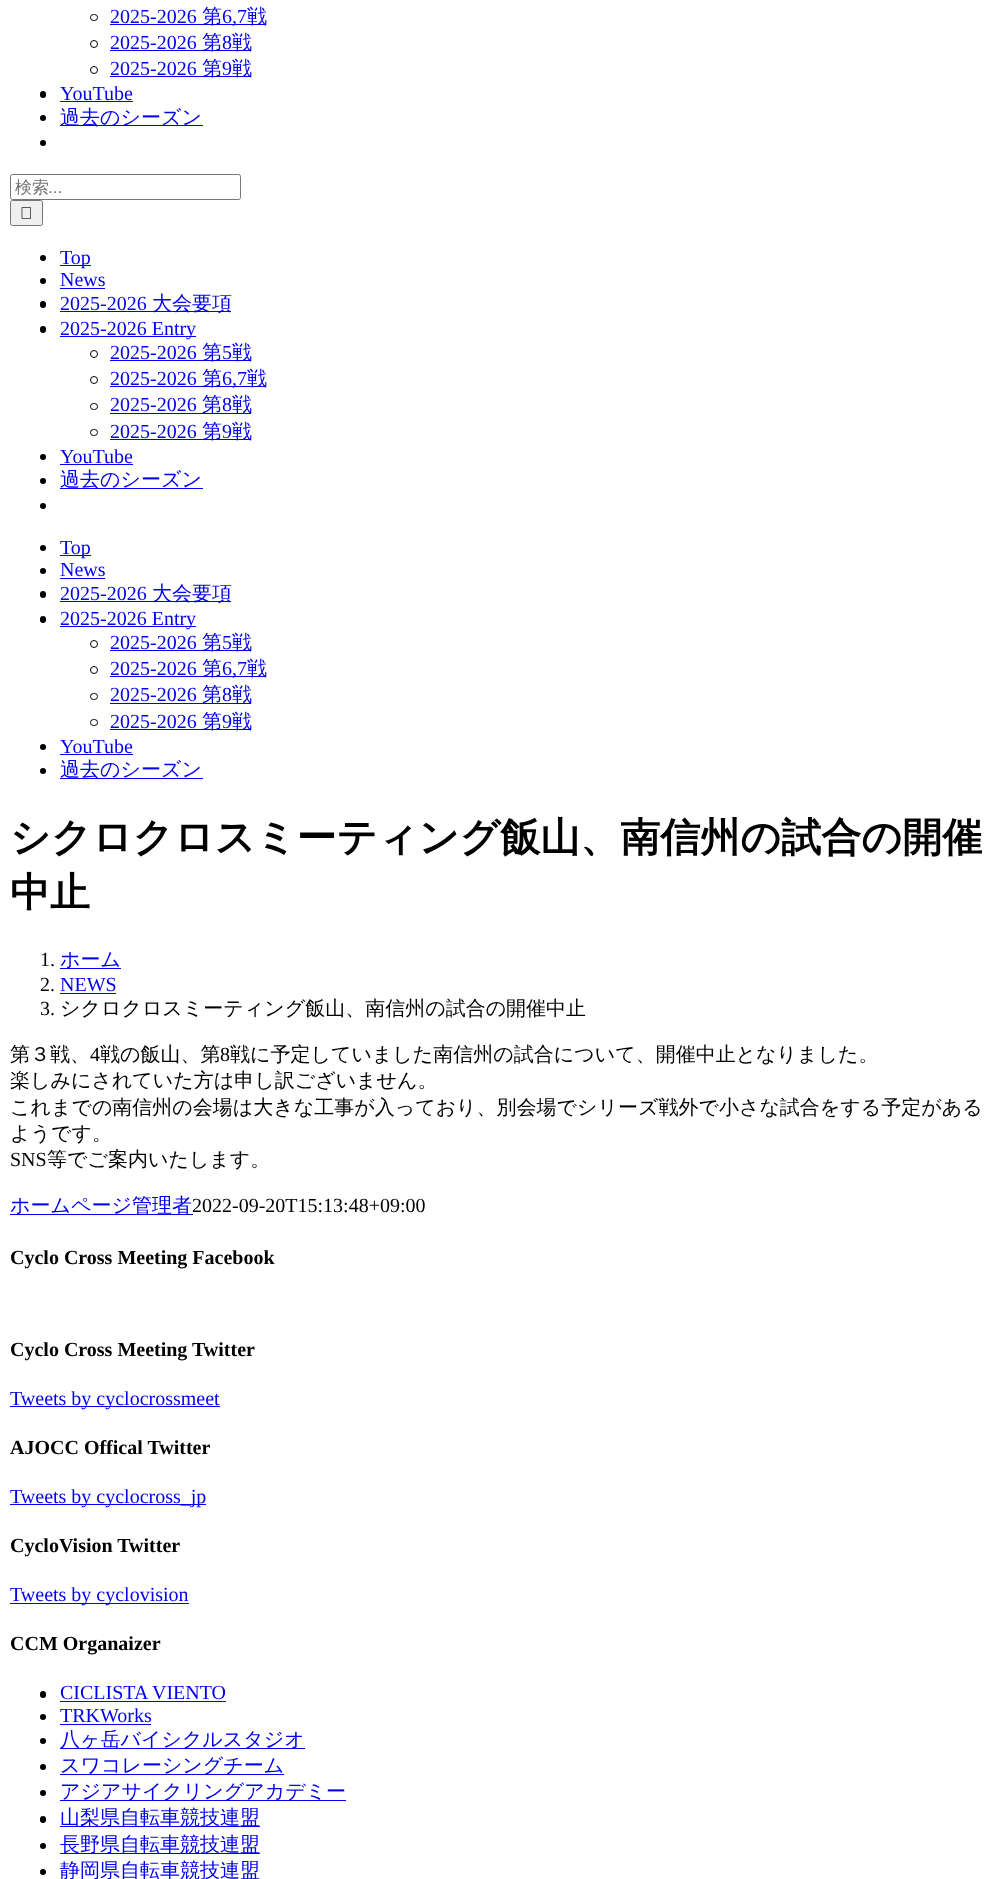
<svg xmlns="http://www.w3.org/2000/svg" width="1003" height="1879">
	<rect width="100%" height="100%" fill="#FFFFFF" />
	<rect x="90.5" y="14.5" width="7" height="6" rx="3" fill="none" stroke="#000000" />
	<text x="110" y="23" font-family="Liberation Serif" font-size="20" fill="#0000EE">2025-2026</text>
	<rect x="110" y="24" width="156" height="1" fill="#0000EE" />
	<text x="202" y="23" font-family="WenQuanYi Zen Hei" font-size="20" font-weight="500" fill="#0000EE">第</text>
	<text x="222" y="23" font-family="Liberation Serif" font-size="20" fill="#0000EE">6,7</text>
	<text x="247" y="23" font-family="WenQuanYi Zen Hei" font-size="20" font-weight="500" fill="#0000EE">戦</text>
	<circle cx="94" cy="44" r="3.5" fill="none" stroke="#000000" />
	<text x="110" y="49" font-family="Liberation Serif" font-size="20" fill="#0000EE">2025-2026</text>
	<rect x="110" y="50" width="141" height="1" fill="#0000EE" />
	<text x="202" y="49" font-family="WenQuanYi Zen Hei" font-size="20" font-weight="500" fill="#0000EE">第</text>
	<text x="222" y="49" font-family="Liberation Serif" font-size="20" fill="#0000EE">8</text>
	<text x="232" y="49" font-family="WenQuanYi Zen Hei" font-size="20" font-weight="500" fill="#0000EE">戦</text>
	<circle cx="94" cy="70" r="3.5" fill="none" stroke="#000000" />
	<text x="110" y="75" font-family="Liberation Serif" font-size="20" fill="#0000EE">2025-2026</text>
	<rect x="110" y="76" width="141" height="1" fill="#0000EE" />
	<text x="202" y="75" font-family="WenQuanYi Zen Hei" font-size="20" font-weight="500" fill="#0000EE">第</text>
	<text x="222" y="75" font-family="Liberation Serif" font-size="20" fill="#0000EE">9</text>
	<text x="232" y="75" font-family="WenQuanYi Zen Hei" font-size="20" font-weight="500" fill="#0000EE">戦</text>
	<rect x="40" y="91" width="6" height="7" rx="3" fill="#000000" />
	<text x="60" y="100" font-family="Liberation Serif" font-size="20" fill="#0000EE">YouTube</text>
	<rect x="60" y="101" width="73" height="1" fill="#0000EE" />
	<circle cx="43" cy="118" r="3" fill="#000000" />
	<rect x="60" y="125" width="143" height="1" fill="#0000EE" />
	<text x="60" y="124" font-family="WenQuanYi Zen Hei" font-size="20" font-weight="500" fill="#0000EE">過去のシーズン</text>
	<circle cx="43" cy="143" r="3" fill="#000000" />
	<rect x="10.5" y="174.5" width="230" height="25" rx="2" fill="none" stroke="#767676" />
	<text x="15" y="193" font-family="WenQuanYi Zen Hei" font-size="17" font-weight="500" fill="#757575">検索</text>
	<text x="48" y="193" font-family="Liberation Sans" font-size="17" fill="#757575">...</text>
	<rect x="10.5" y="200.5" width="32" height="25" rx="2" fill="#EFEFEF" stroke="#767676" />
	<image x="21" y="207" width="10" height="12" href="assets/img1.png" />
	<circle cx="43" cy="258" r="3" fill="#000000" />
	<rect x="60" y="265" width="31" height="1" fill="#0000EE" />
	<text x="60" y="264" font-family="Liberation Serif" font-size="20" fill="#0000EE">Top</text>
	<circle cx="43" cy="281" r="3" fill="#000000" />
	<text x="60" y="286" font-family="Liberation Serif" font-size="20" fill="#0000EE">News</text>
	<rect x="60" y="288" width="45" height="1" fill="#0000EE" />
	<rect x="40" y="301" width="6" height="7" rx="3" fill="#000000" />
	<text x="60" y="310" font-family="Liberation Serif" font-size="20" fill="#0000EE">2025-2026</text>
	<rect x="60" y="311" width="171" height="1" fill="#0000EE" />
	<text x="152" y="310" font-family="WenQuanYi Zen Hei" font-size="20" font-weight="500" fill="#0000EE">大会要項</text>
	<rect x="40" y="326" width="6" height="7" rx="3" fill="#000000" />
	<rect x="60" y="336" width="136" height="1" fill="#0000EE" />
	<text x="60" y="335" font-family="Liberation Serif" font-size="20" fill="#0000EE">2025-2026 Entry</text>
	<circle cx="94" cy="354" r="3.5" fill="none" stroke="#000000" />
	<text x="110" y="359" font-family="Liberation Serif" font-size="20" fill="#0000EE">2025-2026</text>
	<rect x="110" y="360" width="141" height="1" fill="#0000EE" />
	<text x="202" y="359" font-family="WenQuanYi Zen Hei" font-size="20" font-weight="500" fill="#0000EE">第</text>
	<text x="222" y="359" font-family="Liberation Serif" font-size="20" fill="#0000EE">5</text>
	<text x="232" y="359" font-family="WenQuanYi Zen Hei" font-size="20" font-weight="500" fill="#0000EE">戦</text>
	<circle cx="94" cy="380" r="3.5" fill="none" stroke="#000000" />
	<text x="110" y="385" font-family="Liberation Serif" font-size="20" fill="#0000EE">2025-2026</text>
	<rect x="110" y="386" width="156" height="1" fill="#0000EE" />
	<text x="202" y="385" font-family="WenQuanYi Zen Hei" font-size="20" font-weight="500" fill="#0000EE">第</text>
	<text x="222" y="385" font-family="Liberation Serif" font-size="20" fill="#0000EE">6,7</text>
	<text x="247" y="385" font-family="WenQuanYi Zen Hei" font-size="20" font-weight="500" fill="#0000EE">戦</text>
	<rect x="90.5" y="403.5" width="7" height="6" rx="3" fill="none" stroke="#000000" />
	<text x="110" y="411" font-family="Liberation Serif" font-size="20" fill="#0000EE">2025-2026</text>
	<rect x="110" y="413" width="141" height="1" fill="#0000EE" />
	<text x="202" y="411" font-family="WenQuanYi Zen Hei" font-size="20" font-weight="500" fill="#0000EE">第</text>
	<text x="222" y="411" font-family="Liberation Serif" font-size="20" fill="#0000EE">8</text>
	<text x="232" y="411" font-family="WenQuanYi Zen Hei" font-size="20" font-weight="500" fill="#0000EE">戦</text>
	<rect x="90.5" y="429.5" width="7" height="6" rx="3" fill="none" stroke="#000000" />
	<text x="110" y="438" font-family="Liberation Serif" font-size="20" fill="#0000EE">2025-2026</text>
	<rect x="110" y="439" width="141" height="1" fill="#0000EE" />
	<text x="202" y="438" font-family="WenQuanYi Zen Hei" font-size="20" font-weight="500" fill="#0000EE">第</text>
	<text x="222" y="438" font-family="Liberation Serif" font-size="20" fill="#0000EE">9</text>
	<text x="232" y="438" font-family="WenQuanYi Zen Hei" font-size="20" font-weight="500" fill="#0000EE">戦</text>
	<circle cx="43" cy="457" r="3" fill="#000000" />
	<text x="60" y="463" font-family="Liberation Serif" font-size="20" fill="#0000EE">YouTube</text>
	<rect x="60" y="464" width="73" height="1" fill="#0000EE" />
	<circle cx="43" cy="481" r="3" fill="#000000" />
	<rect x="60" y="488" width="143" height="1" fill="#0000EE" />
	<text x="60" y="486" font-family="WenQuanYi Zen Hei" font-size="20" font-weight="500" fill="#0000EE">過去のシーズン</text>
	<circle cx="43" cy="506" r="3" fill="#000000" />
	<circle cx="43" cy="548" r="3" fill="#000000" />
	<rect x="60" y="555" width="31" height="1" fill="#0000EE" />
	<text x="60" y="554" font-family="Liberation Serif" font-size="20" fill="#0000EE">Top</text>
	<circle cx="43" cy="571" r="3" fill="#000000" />
	<text x="60" y="576" font-family="Liberation Serif" font-size="20" fill="#0000EE">News</text>
	<rect x="60" y="578" width="45" height="1" fill="#0000EE" />
	<rect x="40" y="591" width="6" height="7" rx="3" fill="#000000" />
	<text x="60" y="600" font-family="Liberation Serif" font-size="20" fill="#0000EE">2025-2026</text>
	<rect x="60" y="601" width="171" height="1" fill="#0000EE" />
	<text x="152" y="600" font-family="WenQuanYi Zen Hei" font-size="20" font-weight="500" fill="#0000EE">大会要項</text>
	<rect x="40" y="616" width="6" height="7" rx="3" fill="#000000" />
	<rect x="60" y="626" width="136" height="1" fill="#0000EE" />
	<text x="60" y="625" font-family="Liberation Serif" font-size="20" fill="#0000EE">2025-2026 Entry</text>
	<circle cx="94" cy="644" r="3.5" fill="none" stroke="#000000" />
	<text x="110" y="649" font-family="Liberation Serif" font-size="20" fill="#0000EE">2025-2026</text>
	<rect x="110" y="650" width="141" height="1" fill="#0000EE" />
	<text x="202" y="649" font-family="WenQuanYi Zen Hei" font-size="20" font-weight="500" fill="#0000EE">第</text>
	<text x="222" y="649" font-family="Liberation Serif" font-size="20" fill="#0000EE">5</text>
	<text x="232" y="649" font-family="WenQuanYi Zen Hei" font-size="20" font-weight="500" fill="#0000EE">戦</text>
	<circle cx="94" cy="670" r="3.5" fill="none" stroke="#000000" />
	<text x="110" y="675" font-family="Liberation Serif" font-size="20" fill="#0000EE">2025-2026</text>
	<rect x="110" y="676" width="156" height="1" fill="#0000EE" />
	<text x="202" y="675" font-family="WenQuanYi Zen Hei" font-size="20" font-weight="500" fill="#0000EE">第</text>
	<text x="222" y="675" font-family="Liberation Serif" font-size="20" fill="#0000EE">6,7</text>
	<text x="247" y="675" font-family="WenQuanYi Zen Hei" font-size="20" font-weight="500" fill="#0000EE">戦</text>
	<rect x="90.5" y="693.5" width="7" height="6" rx="3" fill="none" stroke="#000000" />
	<text x="110" y="701" font-family="Liberation Serif" font-size="20" fill="#0000EE">2025-2026</text>
	<rect x="110" y="703" width="141" height="1" fill="#0000EE" />
	<text x="202" y="701" font-family="WenQuanYi Zen Hei" font-size="20" font-weight="500" fill="#0000EE">第</text>
	<text x="222" y="701" font-family="Liberation Serif" font-size="20" fill="#0000EE">8</text>
	<text x="232" y="701" font-family="WenQuanYi Zen Hei" font-size="20" font-weight="500" fill="#0000EE">戦</text>
	<rect x="90.5" y="719.5" width="7" height="6" rx="3" fill="none" stroke="#000000" />
	<text x="110" y="728" font-family="Liberation Serif" font-size="20" fill="#0000EE">2025-2026</text>
	<rect x="110" y="729" width="141" height="1" fill="#0000EE" />
	<text x="202" y="728" font-family="WenQuanYi Zen Hei" font-size="20" font-weight="500" fill="#0000EE">第</text>
	<text x="222" y="728" font-family="Liberation Serif" font-size="20" fill="#0000EE">9</text>
	<text x="232" y="728" font-family="WenQuanYi Zen Hei" font-size="20" font-weight="500" fill="#0000EE">戦</text>
	<circle cx="43" cy="747" r="3" fill="#000000" />
	<text x="60" y="753" font-family="Liberation Serif" font-size="20" fill="#0000EE">YouTube</text>
	<rect x="60" y="754" width="73" height="1" fill="#0000EE" />
	<circle cx="43" cy="771" r="3" fill="#000000" />
	<rect x="60" y="778" width="143" height="1" fill="#0000EE" />
	<text x="60" y="776" font-family="WenQuanYi Zen Hei" font-size="20" font-weight="500" fill="#0000EE">過去のシーズン</text>
	<g font-family="WenQuanYi Zen Hei" font-size="40" font-weight="700" fill="#000000">
		<text x="10" y="851">シクロクロスミーティング飯山、南信州の試合の開催</text>
		<text x="10" y="906">中止</text>
	</g>
	<text x="40" y="966" font-family="Liberation Serif" font-size="20" fill="#000000">1.</text>
	<rect x="60" y="968" width="61" height="1" fill="#0000EE" />
	<text x="60" y="966" font-family="WenQuanYi Zen Hei" font-size="20" font-weight="500" fill="#0000EE">ホーム</text>
	<text x="40" y="991" font-family="Liberation Serif" font-size="20" fill="#000000">2.</text>
	<text x="60" y="991" font-family="Liberation Serif" font-size="20" fill="#0000EE">NEWS</text>
	<rect x="60" y="993" width="56" height="1" fill="#0000EE" />
	<text x="40" y="1015" font-family="Liberation Serif" font-size="20" fill="#000000">3.</text>
	<g font-family="WenQuanYi Zen Hei" font-size="20" font-weight="500" fill="#000000">
		<text x="60" y="1015">シクロクロスミーティング飯山、南信州の試合の開催中止</text>
		<text x="10" y="1061">第３戦、</text>
	</g>
	<text x="90" y="1061" font-family="Liberation Serif" font-size="20" fill="#000000">4</text>
	<text x="100" y="1061" font-family="WenQuanYi Zen Hei" font-size="20" font-weight="500" fill="#000000">戦の飯山、第</text>
	<text x="220" y="1061" font-family="Liberation Serif" font-size="20" fill="#000000">8</text>
	<g font-family="WenQuanYi Zen Hei" font-size="20" font-weight="500" fill="#000000">
		<text x="230" y="1061">戦に予定していました南信州の試合について、開催中止となりました。</text>
		<text x="10" y="1087">楽しみにされていた方は申し訳ございません。</text>
		<text x="10" y="1114">これまでの南信州の会場は大きな工事が入っており、別会場でシリーズ戦外で小さな試合をする予定がある</text>
		<text x="10" y="1140">ようです。</text>
	</g>
	<text x="10" y="1166" font-family="Liberation Serif" font-size="20" fill="#000000">SNS</text>
	<text x="47" y="1166" font-family="WenQuanYi Zen Hei" font-size="20" font-weight="500" fill="#000000">等でご案内いたします。</text>
	<rect x="10" y="1214" width="183" height="1" fill="#0000EE" />
	<text x="10" y="1212" font-family="WenQuanYi Zen Hei" font-size="20" font-weight="500" fill="#0000EE">ホームページ管理者</text>
	<text x="192" y="1212" font-family="Liberation Serif" font-size="20" fill="#000000">2022-09-20T15:13:48+09:00</text>
	<g font-family="Liberation Serif" font-size="20" font-weight="700" fill="#000000">
		<text x="10" y="1264">Cyclo Cross Meeting Facebook</text>
		<text x="10" y="1356">Cyclo Cross Meeting Twitter</text>
	</g>
	<rect x="10" y="1406" width="210" height="1" fill="#0000EE" />
	<text x="10" y="1405" font-family="Liberation Serif" font-size="20" fill="#0000EE">Tweets by cyclocrossmeet</text>
	<text x="10" y="1454" font-family="Liberation Serif" font-size="20" font-weight="700" fill="#000000">AJOCC Offical Twitter</text>
	<rect x="10" y="1504" width="196" height="1" fill="#0000EE" />
	<text x="10" y="1503" font-family="Liberation Serif" font-size="20" fill="#0000EE">Tweets by cyclocross_jp</text>
	<text x="10" y="1552" font-family="Liberation Serif" font-size="20" font-weight="700" fill="#000000">CycloVision Twitter</text>
	<rect x="10" y="1603" width="179" height="1" fill="#0000EE" />
	<text x="10" y="1601" font-family="Liberation Serif" font-size="20" fill="#0000EE">Tweets by cyclovision</text>
	<text x="10" y="1650" font-family="Liberation Serif" font-size="20" font-weight="700" fill="#000000">CCM Organaizer</text>
	<rect x="40" y="1691" width="6" height="7" rx="3" fill="#000000" />
	<text x="60" y="1699" font-family="Liberation Serif" font-size="20" fill="#0000EE">CICLISTA VIENTO</text>
	<rect x="60" y="1701" width="166" height="1" fill="#0000EE" />
	<circle cx="43" cy="1717" r="3" fill="#000000" />
	<text x="60" y="1722" font-family="Liberation Serif" font-size="20" fill="#0000EE">TRKWorks</text>
	<rect x="60" y="1724" width="91" height="1" fill="#0000EE" />
	<circle cx="43" cy="1741" r="3" fill="#000000" />
	<rect x="60" y="1748" width="245" height="1" fill="#0000EE" />
	<text x="60" y="1746" font-family="WenQuanYi Zen Hei" font-size="20" font-weight="500" fill="#0000EE">八ヶ岳バイシクルスタジオ</text>
	<circle cx="43" cy="1767" r="3" fill="#000000" />
	<rect x="60" y="1774" width="224" height="1" fill="#0000EE" />
	<text x="60" y="1772" font-family="WenQuanYi Zen Hei" font-size="20" font-weight="500" fill="#0000EE">スワコレーシングチーム</text>
	<circle cx="43" cy="1793" r="3" fill="#000000" />
	<rect x="60" y="1800" width="286" height="1" fill="#0000EE" />
	<text x="60" y="1798" font-family="WenQuanYi Zen Hei" font-size="20" font-weight="500" fill="#0000EE">アジアサイクリングアカデミー</text>
	<rect x="40" y="1816" width="6" height="7" rx="3" fill="#000000" />
	<rect x="60" y="1826" width="200" height="1" fill="#0000EE" />
	<text x="60" y="1824" font-family="WenQuanYi Zen Hei" font-size="20" font-weight="500" fill="#0000EE">山梨県自転車競技連盟</text>
	<circle cx="43" cy="1846" r="3" fill="#000000" />
	<rect x="60" y="1853" width="200" height="1" fill="#0000EE" />
	<text x="60" y="1851" font-family="WenQuanYi Zen Hei" font-size="20" font-weight="500" fill="#0000EE">長野県自転車競技連盟</text>
	<circle cx="43" cy="1872" r="3" fill="#000000" />
	<text x="60" y="1877" font-family="WenQuanYi Zen Hei" font-size="20" font-weight="500" fill="#0000EE">静岡県自転車競技連盟</text>
</svg>
